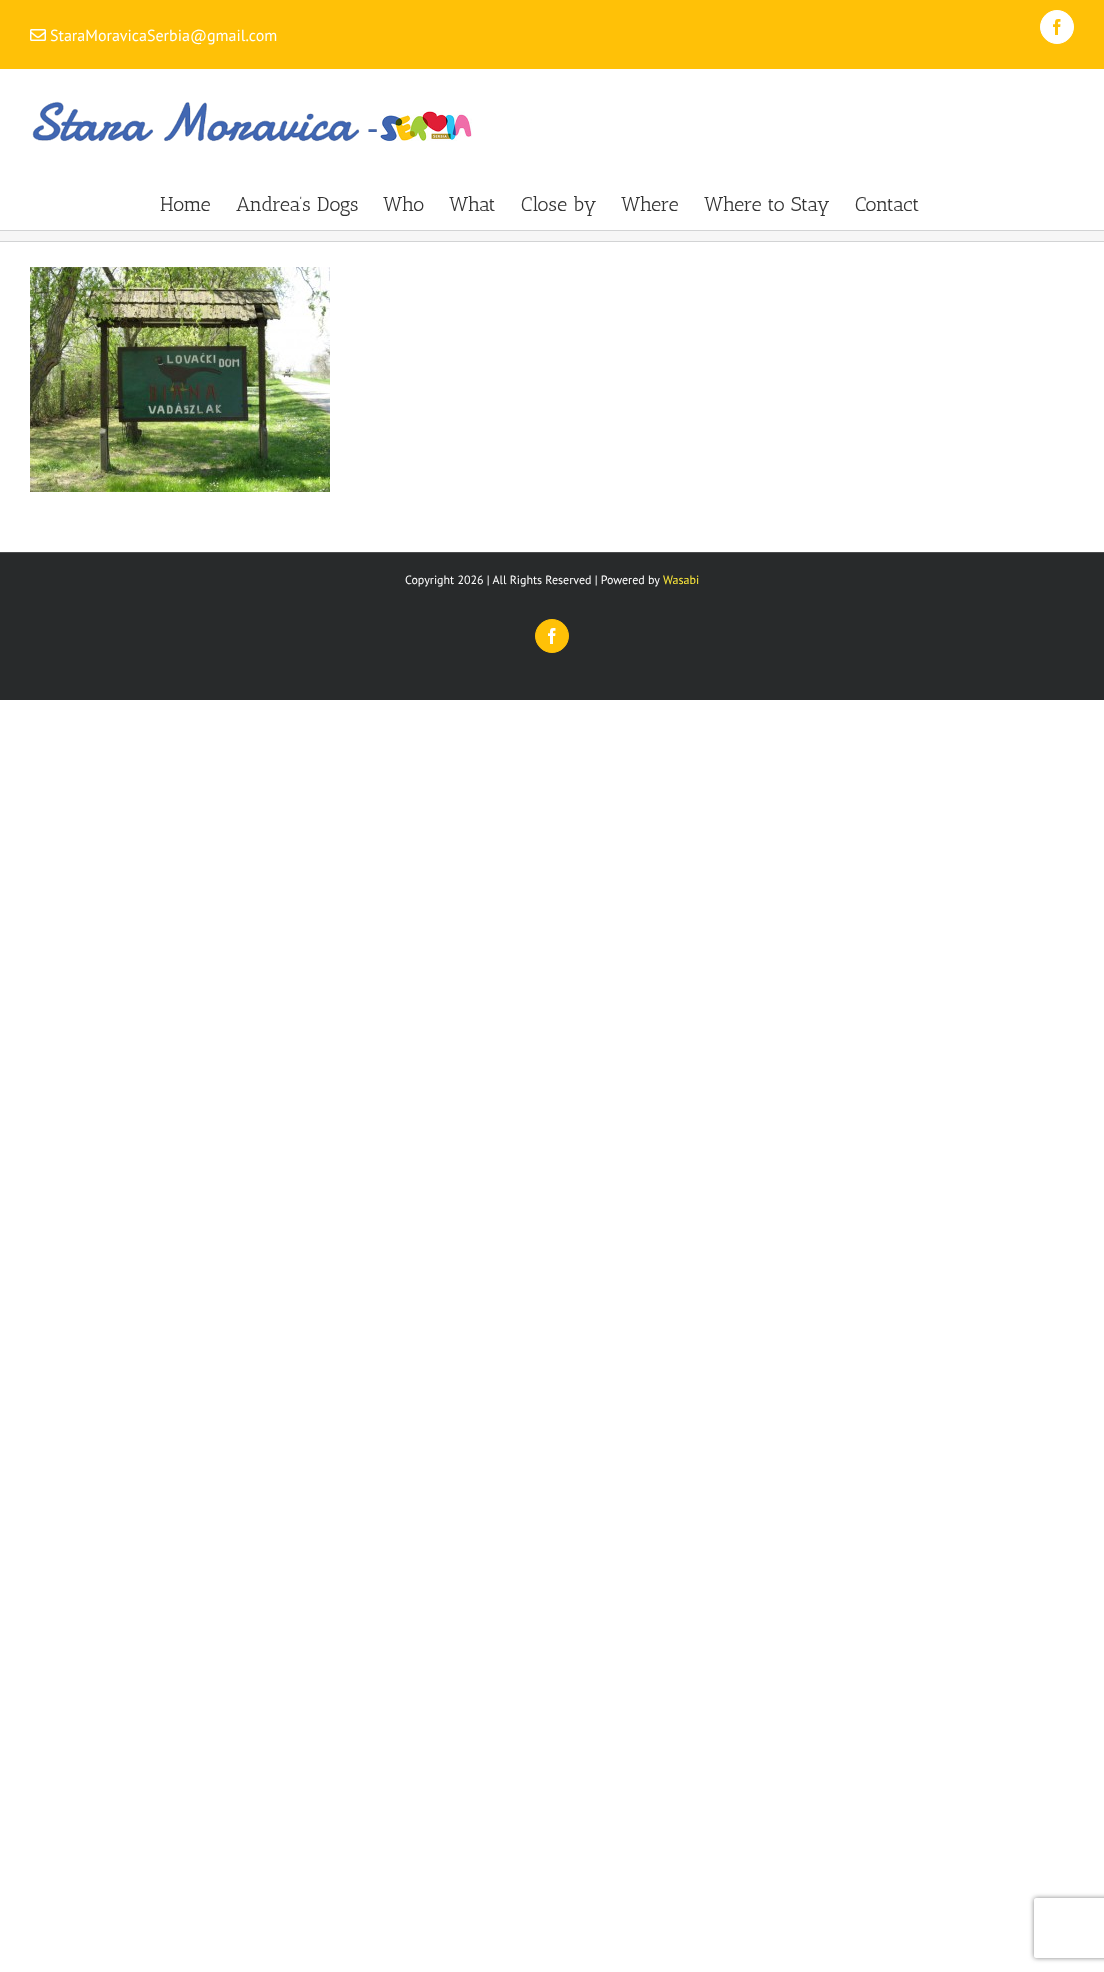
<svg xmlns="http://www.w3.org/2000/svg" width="1104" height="1972">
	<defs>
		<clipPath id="clip1"><path d="M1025 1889H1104V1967H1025ZM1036 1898H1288C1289 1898 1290 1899 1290 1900V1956C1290 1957 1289 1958 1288 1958H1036C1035 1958 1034 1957 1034 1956V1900C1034 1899 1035 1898 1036 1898Z" clip-rule="evenodd" /></clipPath>
	</defs>
	<rect width="100%" height="100%" fill="#FFFFFF" />
	<rect x="0" y="0" width="1104" height="69" fill="#FFC107" />
	<image x="30" y="29" width="16" height="12" href="assets/img1.png" />
	<text x="50" y="41" font-family="PT Sans" font-size="16" fill="#FFFFFF">StaraMoravicaSerbia@gmail.com</text>
	<circle cx="1057" cy="27" r="16.5" fill="#FFFFFF" stroke="#FFFFFF" />
	<image x="1053" y="19" width="8" height="16" href="assets/img2.png" />
	<image x="32" y="101" width="440" height="41" href="assets/img3.png" />
	<g font-family="Antic Slab" font-size="20" fill="#333333">
		<text x="160" y="211">Home</text>
		<text x="236" y="211">Andrea’s Dogs</text>
		<text x="383" y="211">Who</text>
		<text x="449" y="211">What</text>
		<text x="521" y="211">Close by</text>
		<text x="621" y="211">Where</text>
		<text x="704" y="211">Where to Stay</text>
		<text x="855" y="211">Contact</text>
	</g>
	<rect x="0" y="231" width="1104" height="10" fill="#F6F6F6" />
	<rect x="0" y="230" width="1104" height="1" fill="#D2D3D4" />
	<rect x="0" y="241" width="1104" height="1" fill="#D2D3D4" />
	<image x="30" y="267" width="300" height="225" href="assets/img4.png" />
	<rect x="0" y="553" width="1104" height="147" fill="#282A2B" />
	<rect x="0" y="552" width="1104" height="1" fill="#4B4C4D" />
	<text x="405" y="584" font-family="PT Sans" font-size="12" fill="#FFFFFF">Copyright 2026 | All Rights Reserved | Powered by</text>
	<text x="663" y="584" font-family="PT Sans" font-size="12" fill="#FFEB3B">Wasabi</text>
	<circle cx="552" cy="636" r="16.5" fill="#FFC107" stroke="#FFC107" />
	<image x="548" y="628" width="8" height="16" href="assets/img5.png" />
	<g clip-path="url(#clip1)">
		<rect x="1034" y="1898" width="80" height="60" rx="2" fill="#808080" filter="blur(2.5px)" />
	</g>
</svg>
